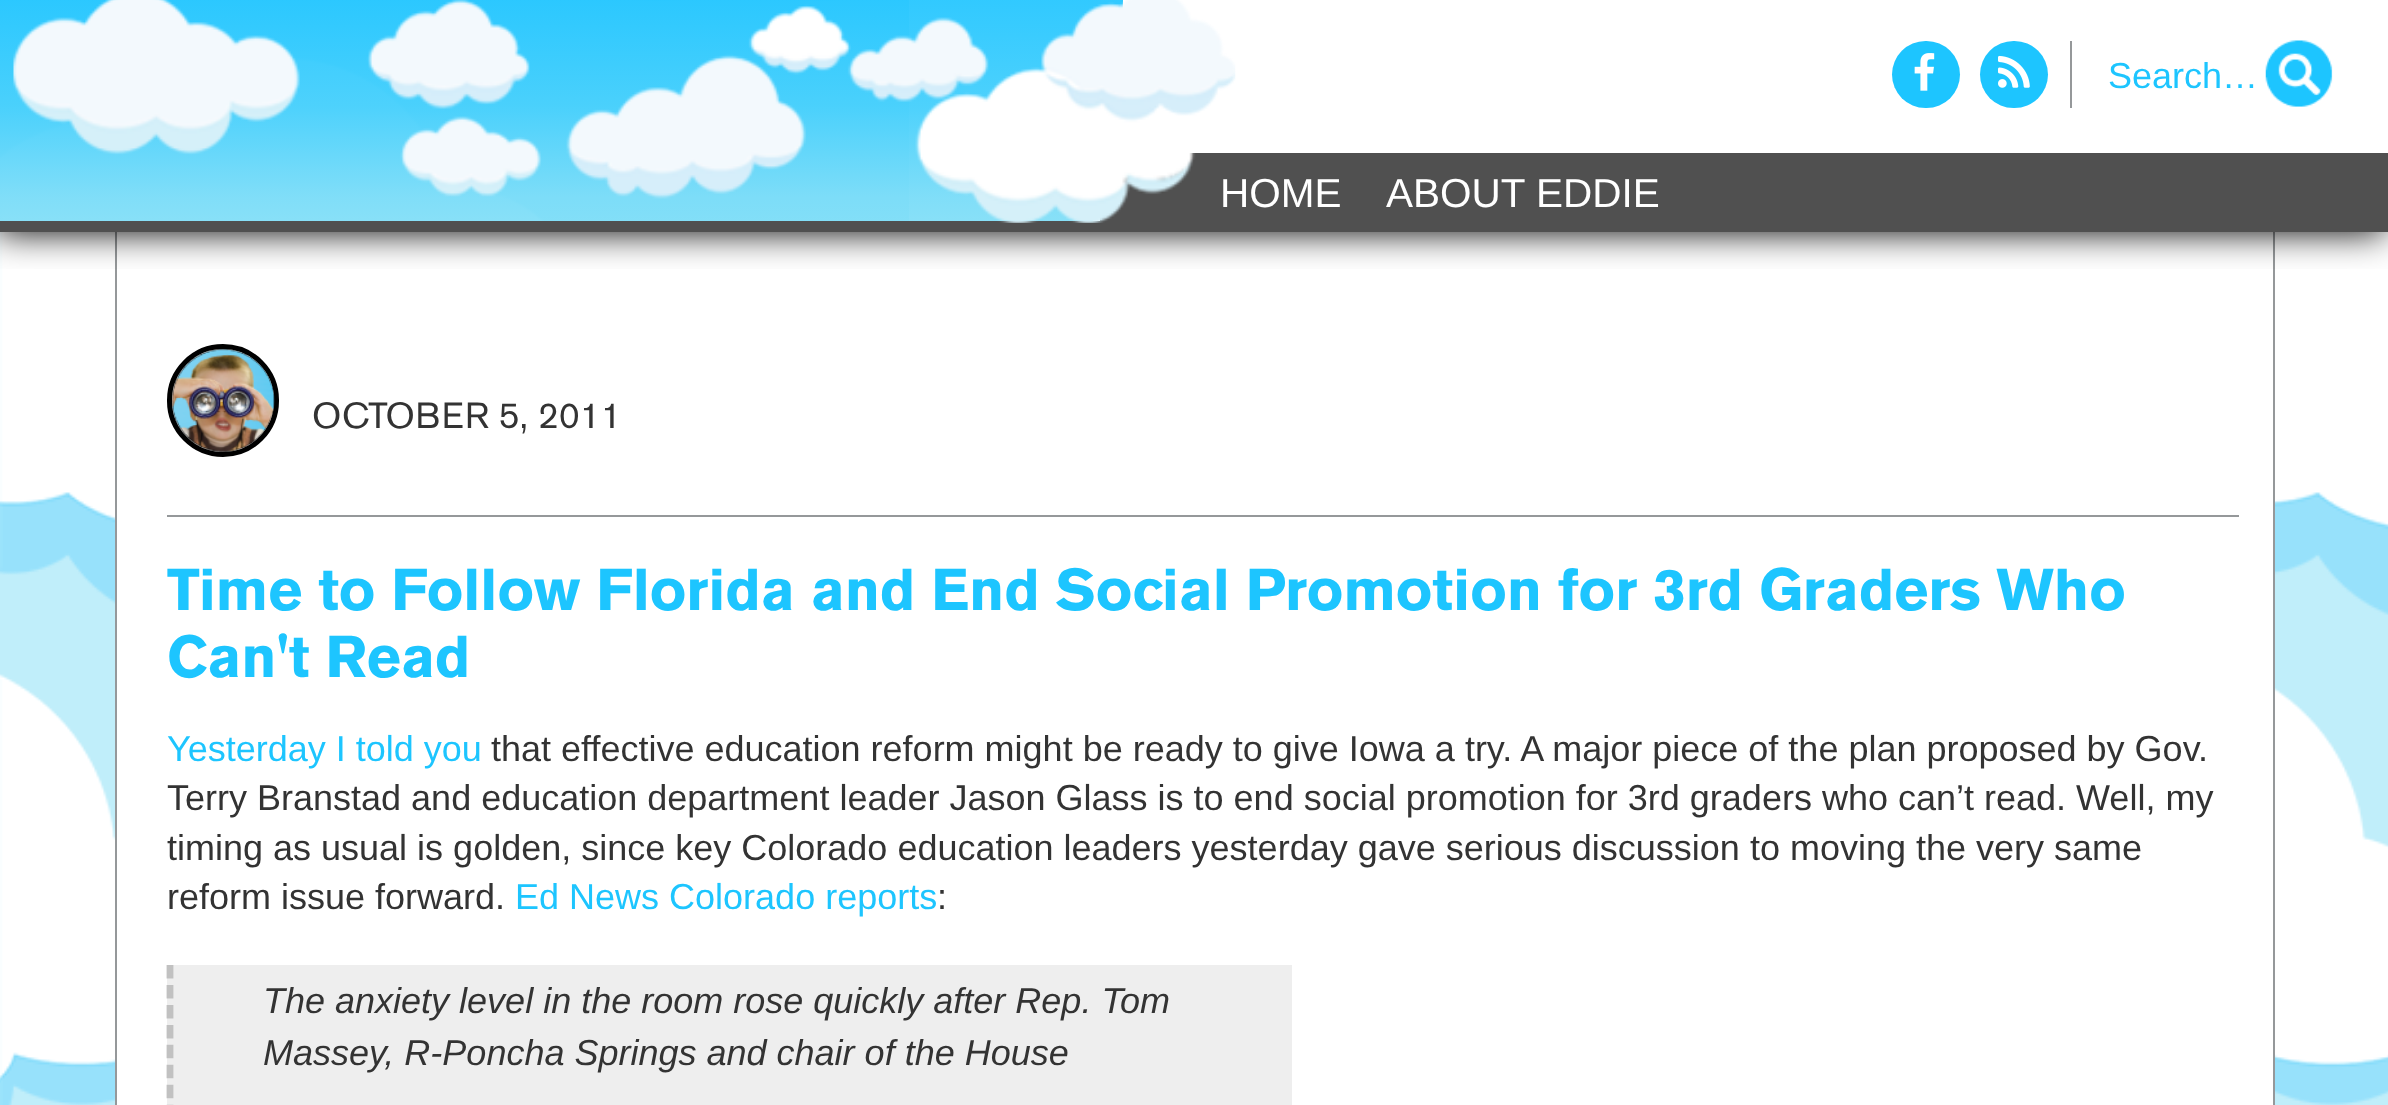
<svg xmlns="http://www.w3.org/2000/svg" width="2388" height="1105">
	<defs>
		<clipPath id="clip1"><rect x="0" y="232" width="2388" height="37" /></clipPath>
		<clipPath id="clip2"><path d="M0 0H1123V164C1123 201.5 1092.5 232 1055 232H0Z" /></clipPath>
		<linearGradient id="g1" gradientUnits="userSpaceOnUse" x1="561" y1="0" x2="561" y2="221"><stop offset="0" stop-color="#1DC4FF" stop-opacity="0.91" /><stop offset="0.48" stop-color="#44CFFC" stop-opacity="0.95" /><stop offset="0.89" stop-color="#79DCF8" stop-opacity="0.95" /><stop offset="1" stop-color="#7CDDF7" stop-opacity="0.91" /></linearGradient>
	</defs>
	<rect width="100%" height="100%" fill="#C0EEFA" />
	<image x="0" y="0" width="2388" height="1105" href="assets/img1.png" />
	<rect x="117" y="232" width="2156" height="873" fill="#FFFFFF" />
	<rect x="2273" y="232" width="2" height="873" fill="#95989A" />
	<rect x="115" y="232" width="2" height="873" fill="#95989A" />
	<g clip-path="url(#clip1)">
		<rect x="-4" y="0" width="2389" height="232" fill="#000000" filter="blur(18px)" />
	</g>
	<rect x="909" y="0" width="1479" height="221" fill="#FFFFFF" />
	<rect x="0" y="221" width="1100" height="11" fill="#505050" />
	<rect x="1100" y="153" width="1288" height="79" fill="#505050" />
	<g clip-path="url(#clip2)">
		<rect x="0" y="0" width="1123" height="221" fill="url(#g1)" />
	</g>
	<rect x="2070" y="41" width="2" height="67" fill="#95989A" />
	<rect x="1892" y="41" width="68" height="67" rx="33.5" fill="#1DC5FF" />
	<image x="1914" y="53" width="21" height="38" href="assets/img2.png" />
	<rect x="1980" y="41" width="68" height="67" rx="33.5" fill="#1DC5FF" />
	<image x="1998" y="55" width="32" height="33" href="assets/img3.png" />
	<text x="2108" y="88" font-family="Liberation Sans" font-size="36" fill="#1DC5FF">Search…</text>
	<image x="2265" y="40" width="68" height="67" href="assets/img4.png" />
	<image x="13" y="0" width="1223" height="223" href="assets/img5.png" />
	<g font-family="Liberation Sans" font-size="40.5" fill="#FFFFFF">
		<text x="1220" y="207">HOME</text>
		<text x="1386" y="207">ABOUT EDDIE</text>
	</g>
	<rect x="167" y="515" width="2072" height="2" fill="#95989A" />
	<rect x="169.5" y="346.5" width="107" height="108" rx="53.5" fill="none" stroke="#000000" stroke-width="5" />
	<image x="172" y="348" width="103" height="104" href="assets/img6.png" />
	<text x="312" y="428" font-family="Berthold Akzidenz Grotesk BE" font-size="36" fill="#333333">OCTOBER 5, 2011</text>
	<g font-family="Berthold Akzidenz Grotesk" font-size="58.5" font-weight="700" fill="#1DC5FF">
		<text x="167" y="610">Time to Follow Florida and End Social Promotion for 3rd Graders Who</text>
		<text x="167" y="677">Can't Read</text>
	</g>
	<text x="167" y="761" font-family="Liberation Sans" font-size="36" fill="#1DC5FF">Yesterday I told you</text>
	<g font-family="Liberation Sans" font-size="36" fill="#333333">
		<text x="491" y="761">that effective education reform might be ready to give Iowa a try. A major piece of the plan proposed by Gov.</text>
		<text x="167" y="810">Terry Branstad and education department leader Jason Glass is to end social promotion for 3rd graders who can’t read. Well, my</text>
		<text x="167" y="860">timing as usual is golden, since key Colorado education leaders yesterday gave serious discussion to moving the very same</text>
		<text x="167" y="909">reform issue forward.</text>
	</g>
	<text x="515" y="909" font-family="Liberation Sans" font-size="36" fill="#1DC5FF">Ed News Colorado reports</text>
	<text x="937" y="909" font-family="Liberation Sans" font-size="36" fill="#333333">:</text>
	<rect x="167" y="965" width="1125" height="140" fill="#EEEEEE" />
	<path d="M170 965V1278" fill="none" stroke="#C1C1C1" stroke-width="6.8" stroke-dasharray="13.5 6.46" />
	<g font-family="Liberation Sans" font-size="36" font-style="italic" fill="#333333">
		<text x="263" y="1013">The anxiety level in the room rose quickly after Rep. Tom</text>
		<text x="263" y="1065">Massey, R-Poncha Springs and chair of the House</text>
	</g>
</svg>
